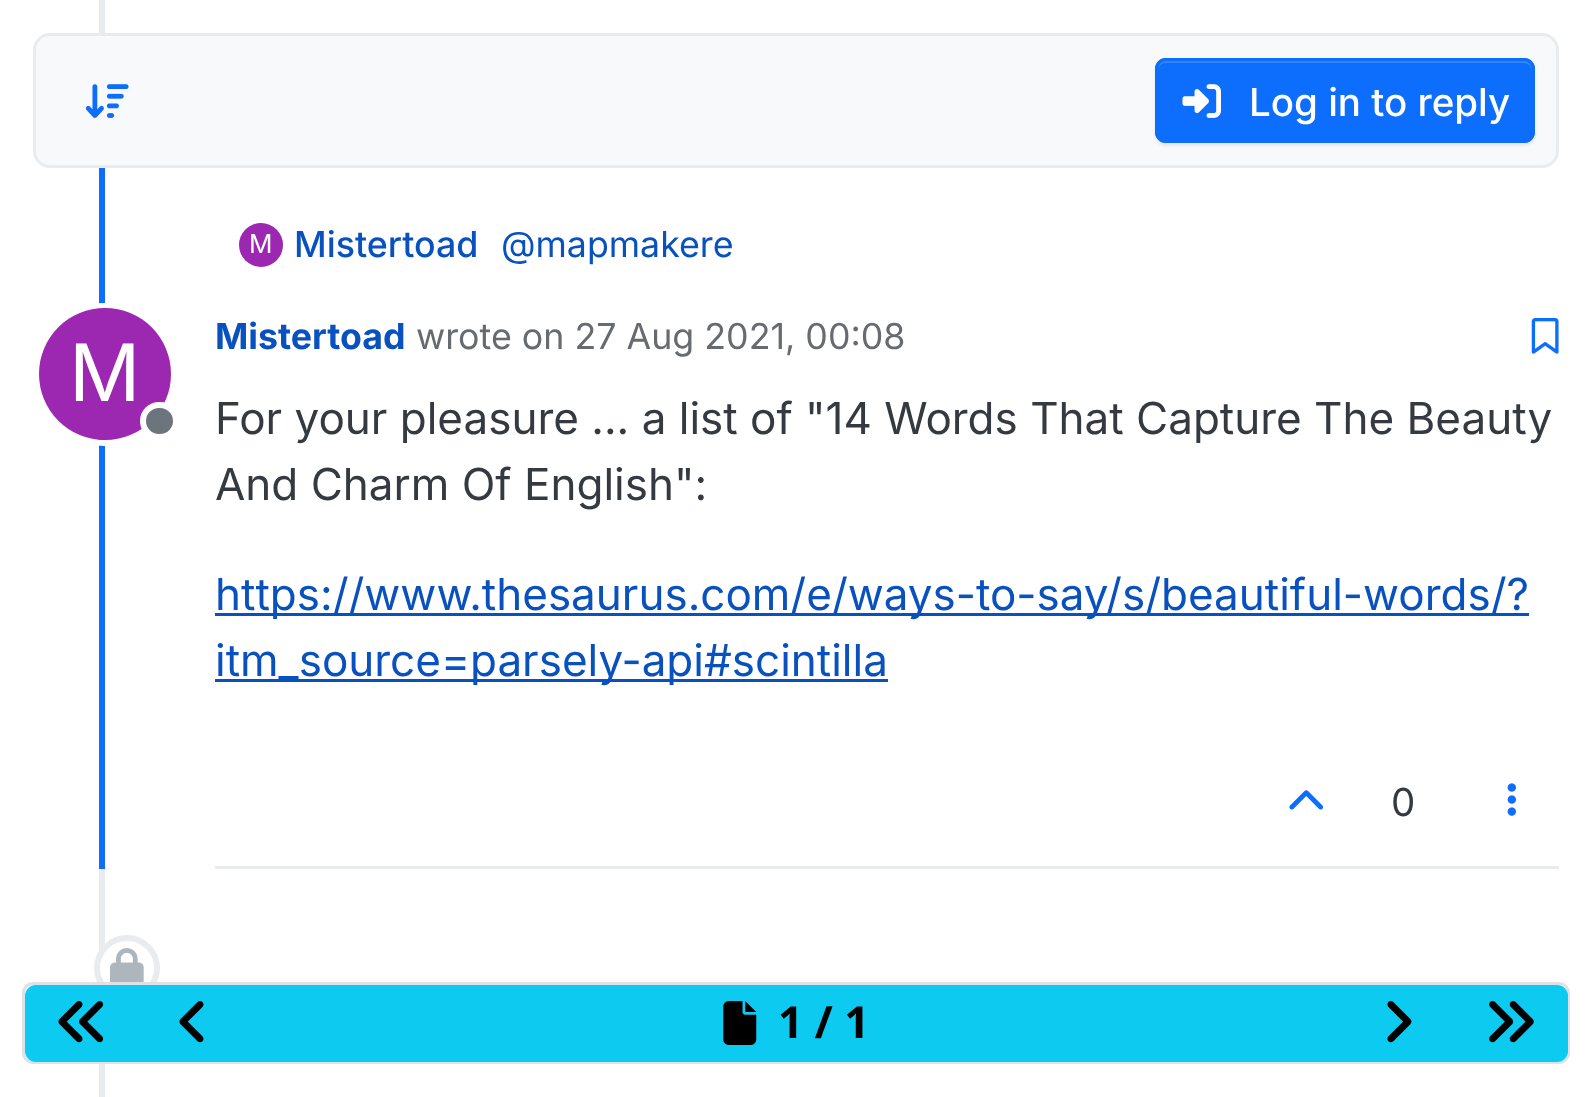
<svg xmlns="http://www.w3.org/2000/svg" width="1590" height="1097">
	<rect width="100%" height="100%" fill="#FFFFFF" />
	<rect x="34.5" y="34.5" width="1523" height="132" rx="15.5" fill="#F8F9FA" stroke="#E9ECEF" stroke-width="3" />
	<image x="85" y="84" width="44" height="34" href="assets/img1.png" />
	<rect x="1155" y="61" width="380" height="85" rx="11" fill="#000000" fill-opacity="0.07" filter="blur(1.5px)" />
	<rect x="1155" y="58" width="380" height="85" rx="11" fill="#0D6EFD" />
	<path d="M1166 63H1524C1528 63 1532 67 1532 72C1532 67 1531 62 1526 61H1164C1159 62 1158 67 1158 72C1158 67 1161 63 1166 63Z" fill="#3184FD" />
	<rect x="1156.5" y="59.5" width="377" height="82" rx="9.5" fill="none" stroke="#0D6EFD" stroke-width="3" />
	<image x="1182" y="84" width="39" height="34" href="assets/img2.png" />
	<text x="1249" y="116" font-family="Inter" font-size="38.5" font-weight="500" fill="#FFFFFF">Log in to reply</text>
	<rect x="99" y="0" width="6" height="33" fill="#E9ECEF" />
	<rect x="99" y="168" width="6" height="701" fill="#0D6EFD" />
	<circle cx="261" cy="245" r="22" fill="#9C27B0" />
	<text x="249" y="253" font-family="Inter" font-size="26" fill="#FFFFFF">M</text>
	<text x="294" y="257" font-family="Inter" font-size="35.75" font-weight="500" fill="#0951BE">Mistertoad</text>
	<text x="501" y="257" font-family="Inter" font-size="35.75" fill="#0951BE">@mapmakere</text>
	<circle cx="104.5" cy="374.5" r="68.5" fill="none" stroke="#FFFFFF" stroke-width="6" />
	<circle cx="105" cy="374" r="66" fill="#9C27B0" />
	<text x="69" y="401" font-family="Inter" font-size="79" fill="#FFFFFF">M</text>
	<rect x="143" y="405" width="33" height="32" rx="16" fill="#6C757D" stroke="#FFFFFF" stroke-width="6" />
	<text x="215" y="349" font-family="Inter" font-size="35.75" font-weight="700" fill="#0951BE">Mistertoad</text>
	<text x="416" y="349" font-family="Inter" font-size="35.75" fill="#676B70">wrote on 27 Aug 2021, 00:08</text>
	<image x="1531" y="318" width="28" height="36" href="assets/img3.png" />
	<g font-family="Inter" font-size="44" fill="#343A40">
		<text x="215" y="434">For your pleasure ... a list of "14 Words That Capture The Beauty</text>
		<text x="215" y="500">And Charm Of English":</text>
	</g>
	<rect x="215" y="613" width="1314" height="3" fill="#0951BE" />
	<text x="215" y="610" font-family="Inter" font-size="44" fill="#0951BE">https://www.thesaurus.com/e/ways-to-say/s/beautiful-words/?</text>
	<rect x="215" y="679" width="673" height="3" fill="#0951BE" />
	<text x="215" y="676" font-family="Inter" font-size="44" fill="#0951BE">itm_source=parsely-api#scintilla</text>
	<rect x="215" y="866" width="1344" height="3" fill="#E9ECEF" />
	<image x="1289" y="790" width="35" height="20" href="assets/img4.png" />
	<text x="1391" y="816" font-family="Inter" font-size="38.5" fill="#343A40">0</text>
	<image x="1507" y="783" width="9" height="33" href="assets/img5.png" />
	<rect x="99" y="869" width="6" height="228" fill="#E9ECEF" />
	<circle cx="127" cy="968" r="30" fill="#FFFFFF" stroke="#E9ECEF" stroke-width="6" />
	<image x="110" y="948" width="34" height="34" href="assets/img6.png" />
	<rect x="23.5" y="983.5" width="1545" height="79" rx="9.5" fill="#F8F9FA" stroke="#DEE2E6" stroke-width="3" />
	<rect x="25" y="985" width="1543" height="77" rx="11" fill="#0DCAF0" />
	<image x="58" y="1001" width="46" height="42" href="assets/img7.png" />
	<image x="179" y="1001" width="25" height="42" href="assets/img8.png" />
	<image x="723" y="1001" width="34" height="44" href="assets/img9.png" />
	<text x="778" y="1038" font-family="Noto Sans" font-size="44" font-weight="700" fill="#000000">1 / 1</text>
	<image x="1387" y="1001" width="25" height="42" href="assets/img10.png" />
	<image x="1489" y="1001" width="45" height="42" href="assets/img11.png" />
</svg>
